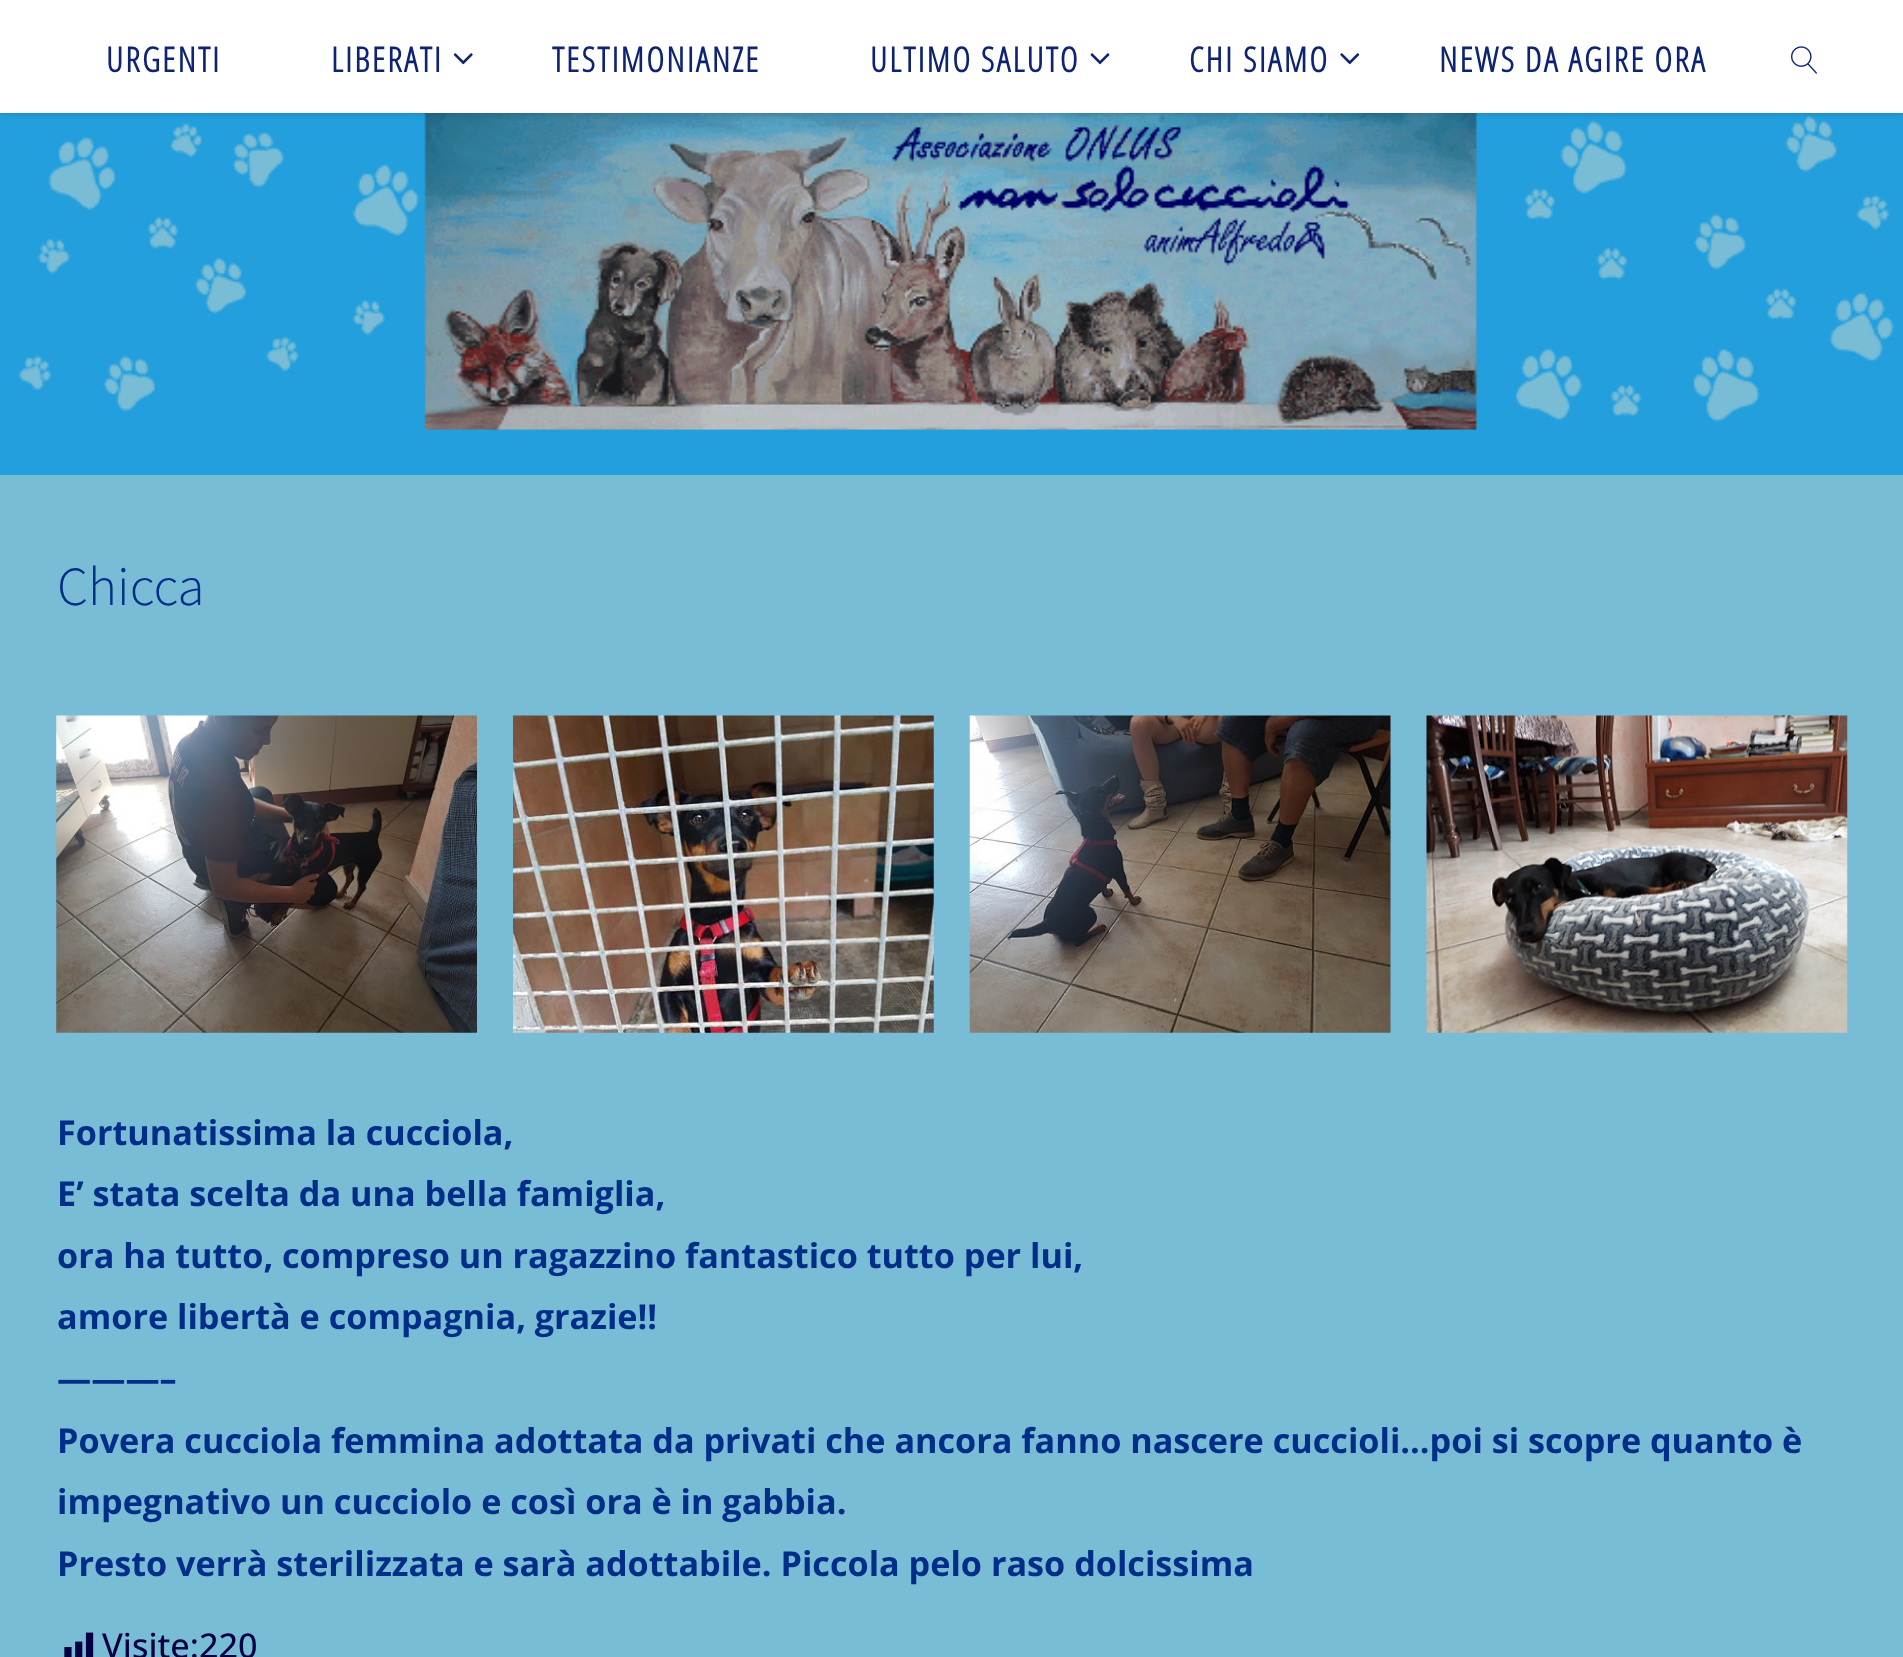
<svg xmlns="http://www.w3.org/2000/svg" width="1903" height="1657">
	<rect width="100%" height="100%" fill="#239FDD" />
	<image x="18" y="113" width="1876" height="317" href="assets/img5.png" />
	<rect x="0" y="0" width="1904" height="113" fill="#000000" fill-opacity="0.2" filter="blur(3.5px)" />
	<rect x="0" y="0" width="1903" height="113" fill="#FFFFFF" />
	<g font-family="Open Sans Condensed" font-size="34.2" font-weight="700" letter-spacing="2.25" fill="#0F2375">
		<text x="106" y="72">URGENTI</text>
		<text x="331" y="72">LIBERATI</text>
	</g>
	<image x="453" y="53" width="20" height="12" href="assets/img1.png" />
	<g font-family="Open Sans Condensed" font-size="34.2" font-weight="700" letter-spacing="2.25" fill="#0F2375">
		<text x="552" y="72">TESTIMONIANZE</text>
		<text x="870" y="72">ULTIMO SALUTO</text>
	</g>
	<image x="1090" y="53" width="20" height="12" href="assets/img2.png" />
	<text x="1189" y="72" font-family="Open Sans Condensed" font-size="34.2" font-weight="700" letter-spacing="2.25" fill="#0F2375">CHI SIAMO</text>
	<image x="1340" y="53" width="20" height="12" href="assets/img3.png" />
	<text x="1439" y="72" font-family="Open Sans Condensed" font-size="34.2" font-weight="700" letter-spacing="2.25" fill="#0F2375">NEWS DA AGIRE ORA</text>
	<image x="1791" y="46" width="26" height="28" href="assets/img4.png" />
	<rect x="0" y="475" width="1903" height="1182" fill="#78BCD6" />
	<text x="57" y="605" font-family="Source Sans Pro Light" font-size="55" font-weight="300" fill="#002D87">Chicca</text>
	<image x="56" y="715" width="421" height="318" href="assets/img6.png" />
	<image x="513" y="715" width="421" height="318" href="assets/img7.png" />
	<image x="969" y="715" width="422" height="318" href="assets/img8.png" />
	<image x="1426" y="715" width="422" height="318" href="assets/img9.png" />
	<g font-family="Open Sans" font-size="34.2" font-weight="700" fill="#002D87">
		<text x="57" y="1145">Fortunatissima la cucciola,</text>
		<text x="57" y="1206">E’ stata scelta da una bella famiglia,</text>
		<text x="57" y="1268">ora ha tutto, compreso un ragazzino fantastico tutto per lui,</text>
		<text x="57" y="1329">amore libertà e compagnia, grazie!!</text>
		<text x="57" y="1391">———–</text>
		<text x="57" y="1453">Povera cucciola femmina adottata da privati che ancora fanno nascere cuccioli…poi si scopre quanto è</text>
		<text x="57" y="1514">impegnativo un cucciolo e così ora è in gabbia.</text>
		<text x="57" y="1576">Presto verrà sterilizzata e sarà adottabile. Piccola pelo raso dolcissima</text>
	</g>
	<image x="64" y="1632" width="30" height="25" href="assets/img10.png" />
	<text x="102" y="1658" font-family="Open Sans" font-size="34.2" font-weight="500" fill="#000042">Visite:220</text>
</svg>
